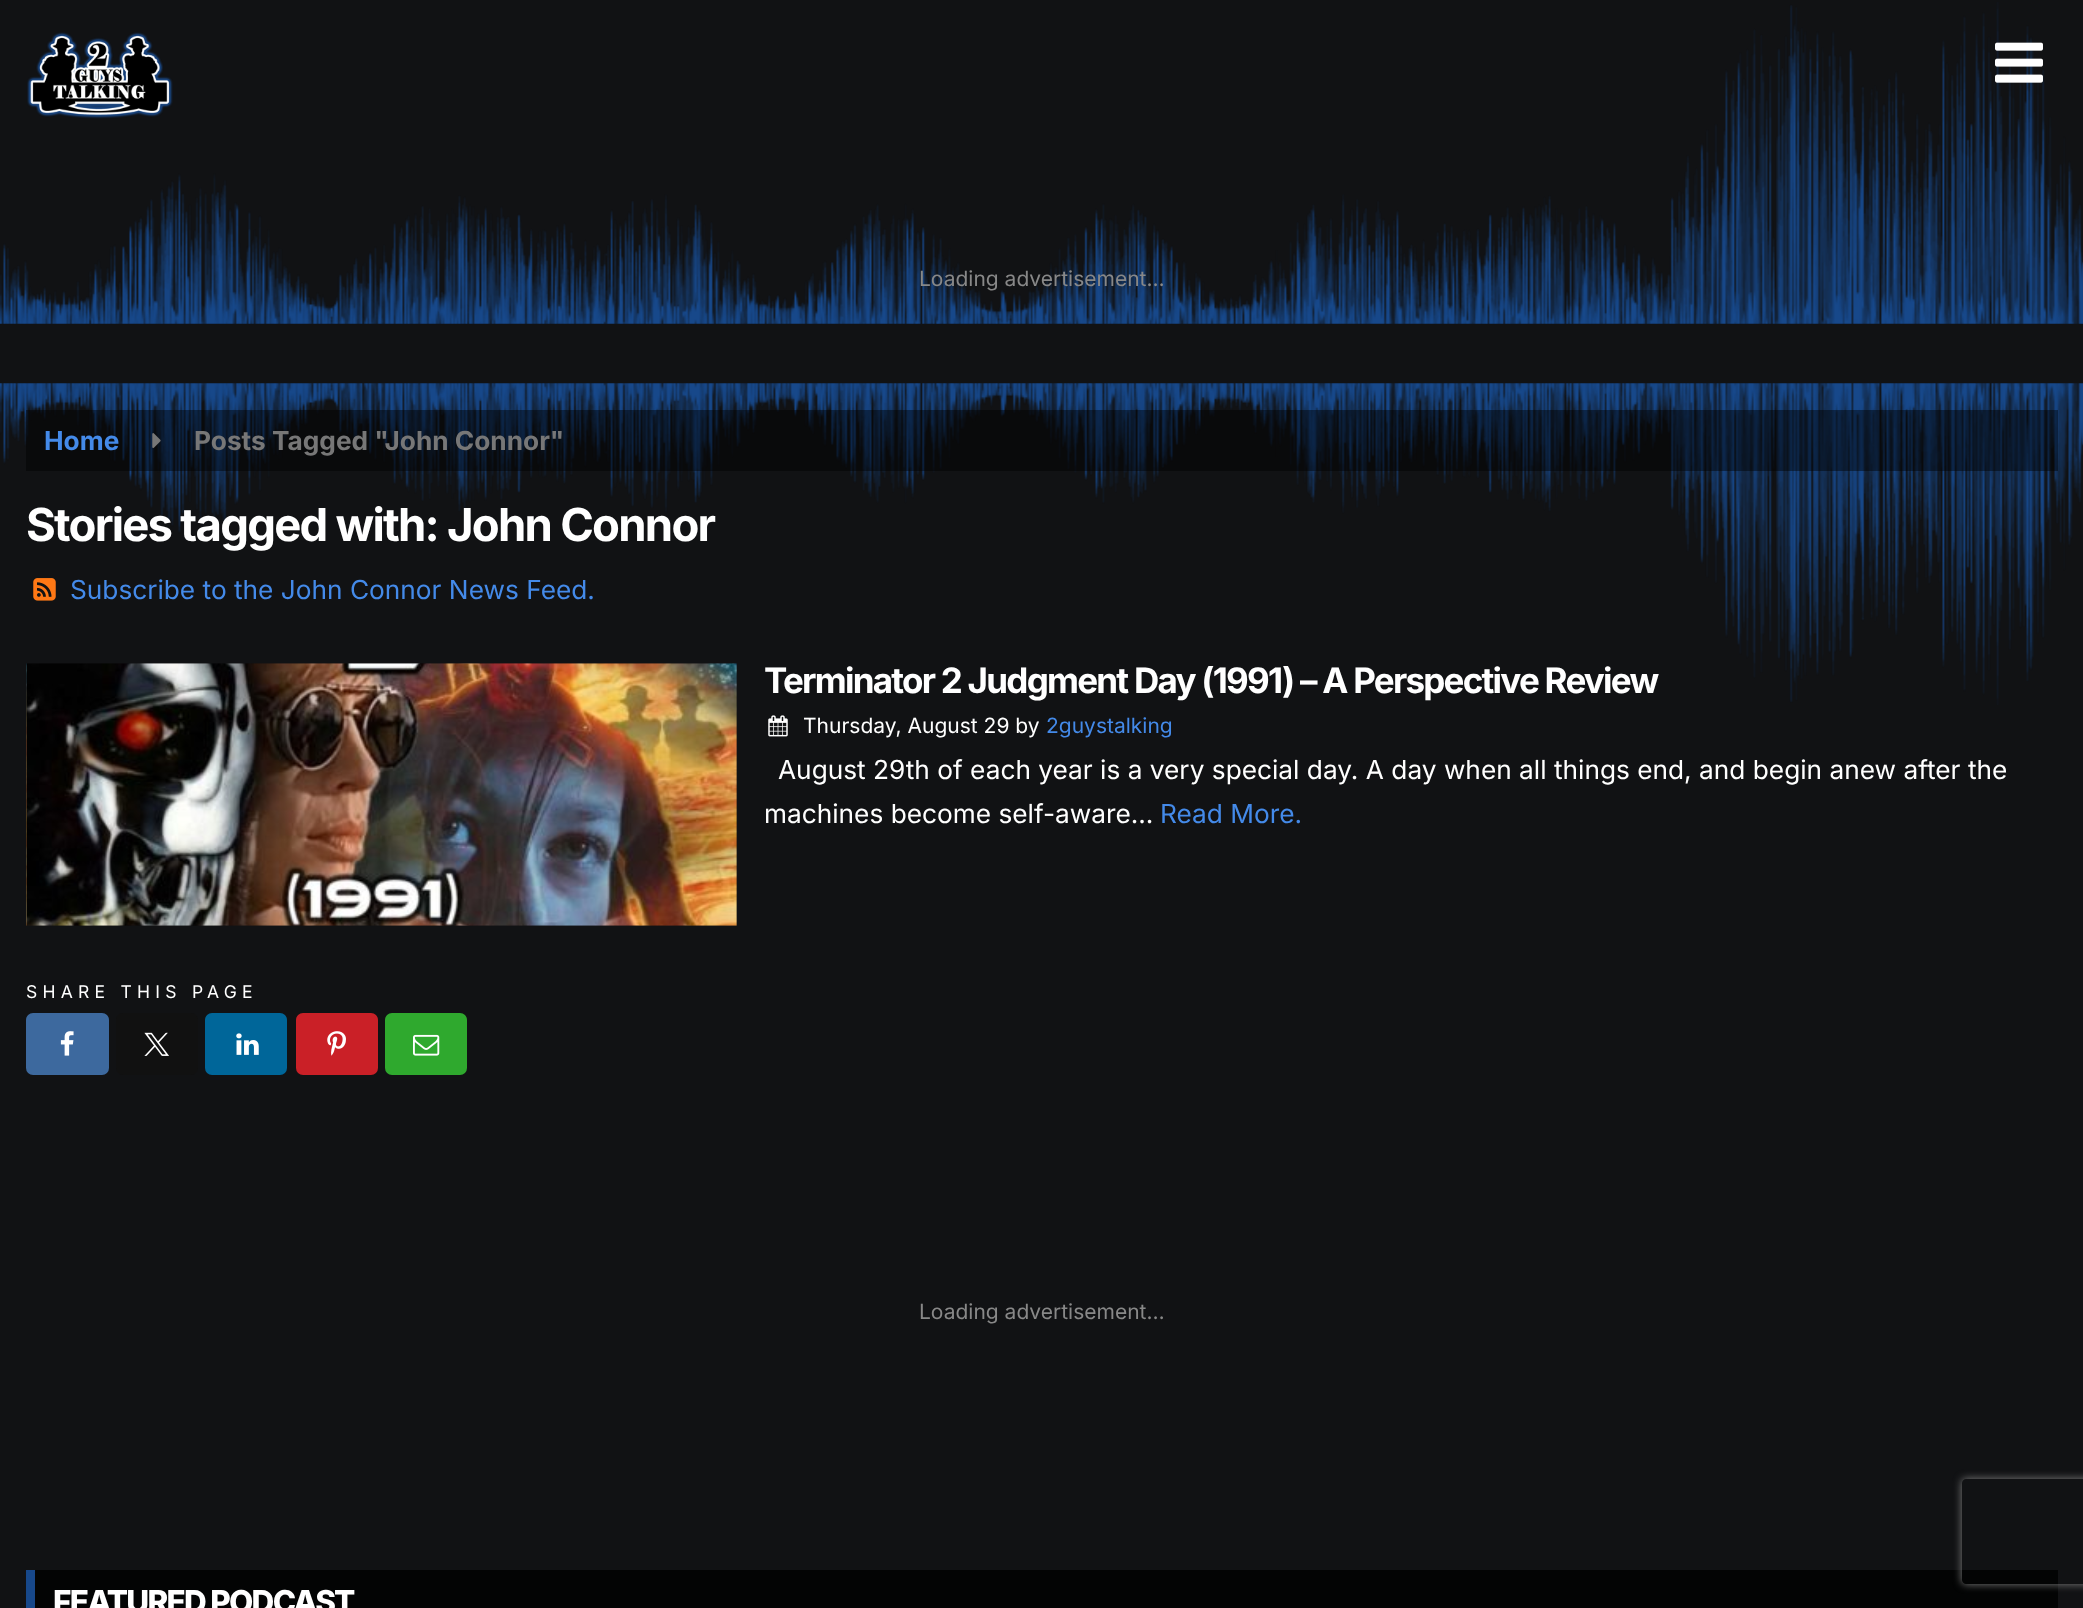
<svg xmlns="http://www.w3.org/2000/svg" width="2083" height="1608">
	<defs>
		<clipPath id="clip1"><path d="M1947 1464H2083V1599H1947ZM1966 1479H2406C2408 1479 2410 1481 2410 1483V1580C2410 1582 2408 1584 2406 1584H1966C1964 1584 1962 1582 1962 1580V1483C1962 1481 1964 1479 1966 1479Z" clip-rule="evenodd" /></clipPath>
	</defs>
	<rect width="100%" height="100%" fill="#111214" />
	<image x="0" y="2" width="2083" height="322" href="assets/img1.png" />
	<image x="27" y="32" width="146" height="87" href="assets/img2.png" />
	<image x="1995" y="42" width="48" height="41" href="assets/img3.png" />
	<text x="919" y="286" font-family="Inter" font-size="21" fill="#888888">Loading advertisement…</text>
	<image x="0" y="383" width="2083" height="322" href="assets/img4.png" />
	<rect x="26" y="410" width="2032" height="61" fill="#000000" fill-opacity="0.44" />
	<text x="44" y="450" font-family="Inter" font-size="26.25" font-weight="700" fill="#448AE9">Home</text>
	<image x="152" y="433" width="9" height="15" href="assets/img5.png" />
	<text x="194" y="450" font-family="Inter" font-size="26.25" font-weight="700" fill="#777777">Posts Tagged "John Connor"</text>
	<text x="26" y="541" font-family="Inter" font-size="45.5" font-weight="700" letter-spacing="-1.75" fill="#FFFFFF">Stories tagged with: John Connor</text>
	<image x="33" y="578" width="23" height="23" href="assets/img6.png" />
	<text x="70" y="599" font-family="Inter" font-size="26.25" fill="#448AE9">Subscribe to the John Connor News Feed.</text>
	<image x="26" y="663" width="711" height="263" href="assets/img7.png" />
	<text x="764" y="693" font-family="Inter" font-size="35" font-weight="700" letter-spacing="-1.75" fill="#FFFFFF">Terminator 2 Judgment Day (1991) – A Perspective Review</text>
	<image x="768" y="715" width="20" height="22" href="assets/img8.png" />
	<text x="803" y="733" font-family="Inter" font-size="21" fill="#FFFFFF">Thursday, August 29 by</text>
	<text x="1046" y="733" font-family="Inter" font-size="21" fill="#448AE9">2guystalking</text>
	<g font-family="Inter" font-size="26.25" fill="#FFFFFF">
		<text x="778" y="779">August 29th of each year is a very special day. A day when all things end, and begin anew after the</text>
		<text x="764" y="823">machines become self-aware...</text>
	</g>
	<text x="1160" y="823" font-family="Inter" font-size="26.25" fill="#448AE9">Read More.</text>
	<text x="26" y="998" font-family="Inter" font-size="17.5" letter-spacing="5.25" fill="#FFFFFF">SHARE THIS PAGE</text>
	<rect x="26" y="1013" width="83" height="62" rx="7" fill="#3D699E" />
	<image x="60" y="1031" width="14" height="25" href="assets/img9.png" />
	<rect x="116" y="1013" width="82" height="62" rx="7" fill="#111111" />
	<image x="144" y="1032" width="25" height="24" href="assets/img10.png" />
	<rect x="205" y="1013" width="82" height="62" rx="7" fill="#006699" />
	<image x="236" y="1033" width="23" height="22" href="assets/img11.png" />
	<rect x="296" y="1013" width="82" height="62" rx="7" fill="#CA2027" />
	<image x="327" y="1031" width="19" height="25" href="assets/img12.png" />
	<rect x="385" y="1013" width="82" height="62" rx="7" fill="#2FA92E" />
	<image x="413" y="1034" width="27" height="22" href="assets/img13.png" />
	<text x="919" y="1319" font-family="Inter" font-size="21" fill="#888888">Loading advertisement…</text>
	<rect x="35" y="1570" width="2023" height="38" fill="#030404" />
	<rect x="26" y="1570" width="9" height="38" fill="#17488A" />
	<text x="53" y="1613" font-family="Inter" font-size="31.5" font-weight="800" letter-spacing="-1.75" fill="#FFFFFF">FEATURED PODCAST</text>
	<g clip-path="url(#clip1)">
		<rect x="1962" y="1479" width="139" height="105" rx="4" fill="#808080" filter="blur(4.5px)" />
	</g>
</svg>
